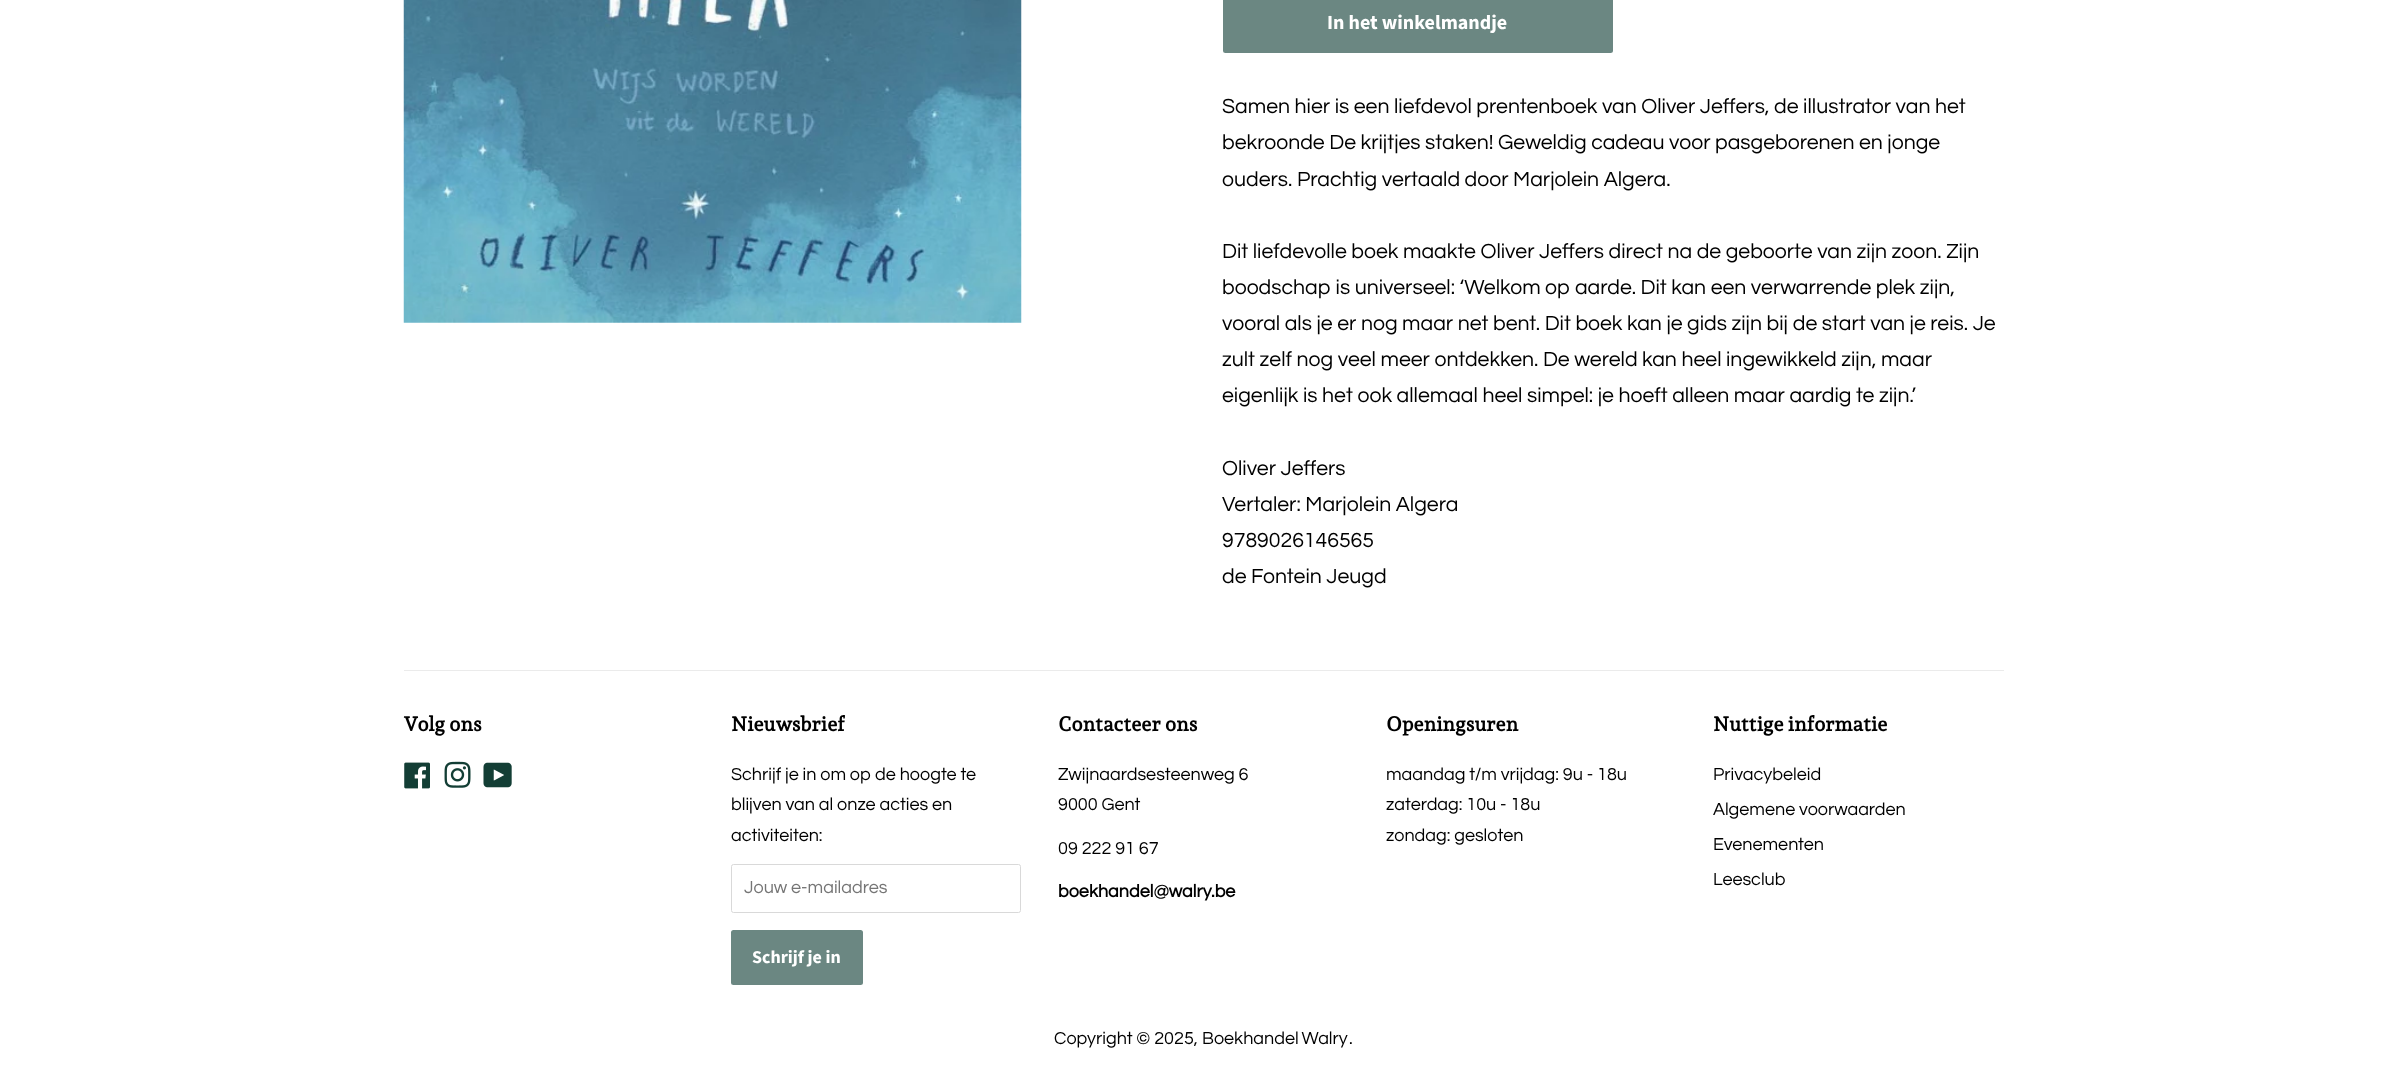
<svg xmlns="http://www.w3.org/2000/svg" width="2406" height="1070">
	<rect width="100%" height="100%" fill="#FFFFFF" />
	<image x="403" y="0" width="619" height="323" href="assets/img1.png" />
	<rect x="1223" y="-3" width="390" height="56" rx="2.5" fill="#6B8782" />
	<text x="1327" y="29" font-family="Source Sans Pro" font-size="20" font-weight="700" fill="#FFFFFF">In het winkelmandje</text>
	<g font-family="Questrial" font-size="21.25" fill="#000000">
		<text x="1222" y="113">Samen hier is een liefdevol prentenboek van Oliver Jeffers, de illustrator van het</text>
		<text x="1222" y="149">bekroonde De krijtjes staken! Geweldig cadeau voor pasgeborenen en jonge</text>
		<text x="1222" y="186">ouders. Prachtig vertaald door Marjolein Algera.</text>
		<text x="1222" y="258">Dit liefdevolle boek maakte Oliver Jeffers direct na de geboorte van zijn zoon. Zijn</text>
		<text x="1222" y="294">boodschap is universeel: ‘Welkom op aarde. Dit kan een verwarrende plek zijn,</text>
		<text x="1222" y="330">vooral als je er nog maar net bent. Dit boek kan je gids zijn bij de start van je reis. Je</text>
		<text x="1222" y="366">zult zelf nog veel meer ontdekken. De wereld kan heel ingewikkeld zijn, maar</text>
		<text x="1222" y="402">eigenlijk is het ook allemaal heel simpel: je hoeft alleen maar aardig te zijn.’</text>
		<text x="1222" y="475">Oliver Jeffers</text>
		<text x="1222" y="511">Vertaler: Marjolein Algera</text>
		<text x="1222" y="547">9789026146565</text>
		<text x="1222" y="583">de Fontein Jeugd</text>
	</g>
	<rect x="404" y="670" width="1600" height="1" fill="#EBEBEB" />
	<text x="403" y="731" font-family="Andada Pro" font-size="20" font-weight="700" fill="#000000">Volg ons</text>
	<image x="404" y="762" width="26" height="27" href="assets/img2.png" />
	<image x="444" y="761" width="27" height="27" href="assets/img3.png" />
	<image x="483" y="762" width="29" height="26" href="assets/img4.png" />
	<text x="731" y="731" font-family="Andada Pro" font-size="20" font-weight="700" fill="#000000">Nieuwsbrief</text>
	<g font-family="Questrial" font-size="18" fill="#000000">
		<text x="731" y="780">Schrijf je in om op de hoogte te</text>
		<text x="731" y="810">blijven van al onze acties en</text>
		<text x="731" y="841">activiteiten:</text>
	</g>
	<rect x="731.5" y="864.5" width="289" height="48" rx="2" fill="none" stroke="#D9D9D9" />
	<text x="744" y="893" font-family="Questrial" font-size="18" fill="#757575">Jouw e-mailadres</text>
	<rect x="731" y="930" width="132" height="55" rx="2.5" fill="#6B8782" />
	<text x="752" y="963" font-family="Source Sans Pro" font-size="18" font-weight="700" fill="#FFFFFF">Schrijf je in</text>
	<text x="1058" y="731" font-family="Andada Pro" font-size="20" font-weight="700" fill="#000000">Contacteer ons</text>
	<g font-family="Questrial" font-size="18" fill="#000000">
		<text x="1058" y="780">Zwijnaardsesteenweg 6</text>
		<text x="1058" y="810">9000 Gent</text>
		<text x="1058" y="854">09 222 91 67</text>
	</g>
	<text x="1058" y="897" font-family="Questrial" font-size="18" font-weight="700" fill="#000000">boekhandel@walry.be</text>
	<text x="1386" y="731" font-family="Andada Pro" font-size="20" font-weight="700" fill="#000000">Openingsuren</text>
	<g font-family="Questrial" font-size="18" fill="#000000">
		<text x="1386" y="780">maandag t/m vrijdag: 9u - 18u</text>
		<text x="1386" y="810">zaterdag: 10u - 18u</text>
		<text x="1386" y="841">zondag: gesloten</text>
	</g>
	<text x="1713" y="731" font-family="Andada Pro" font-size="20" font-weight="700" fill="#000000">Nuttige informatie</text>
	<g font-family="Questrial" font-size="18" fill="#000000">
		<text x="1713" y="780">Privacybeleid</text>
		<text x="1713" y="815">Algemene voorwaarden</text>
		<text x="1713" y="850">Evenementen</text>
		<text x="1713" y="885">Leesclub</text>
		<text x="1054" y="1044">Copyright © 2025,</text>
		<text x="1202" y="1044" word-spacing="-1">Boekhandel Walry</text>
		<text x="1349" y="1044">.</text>
	</g>
</svg>
